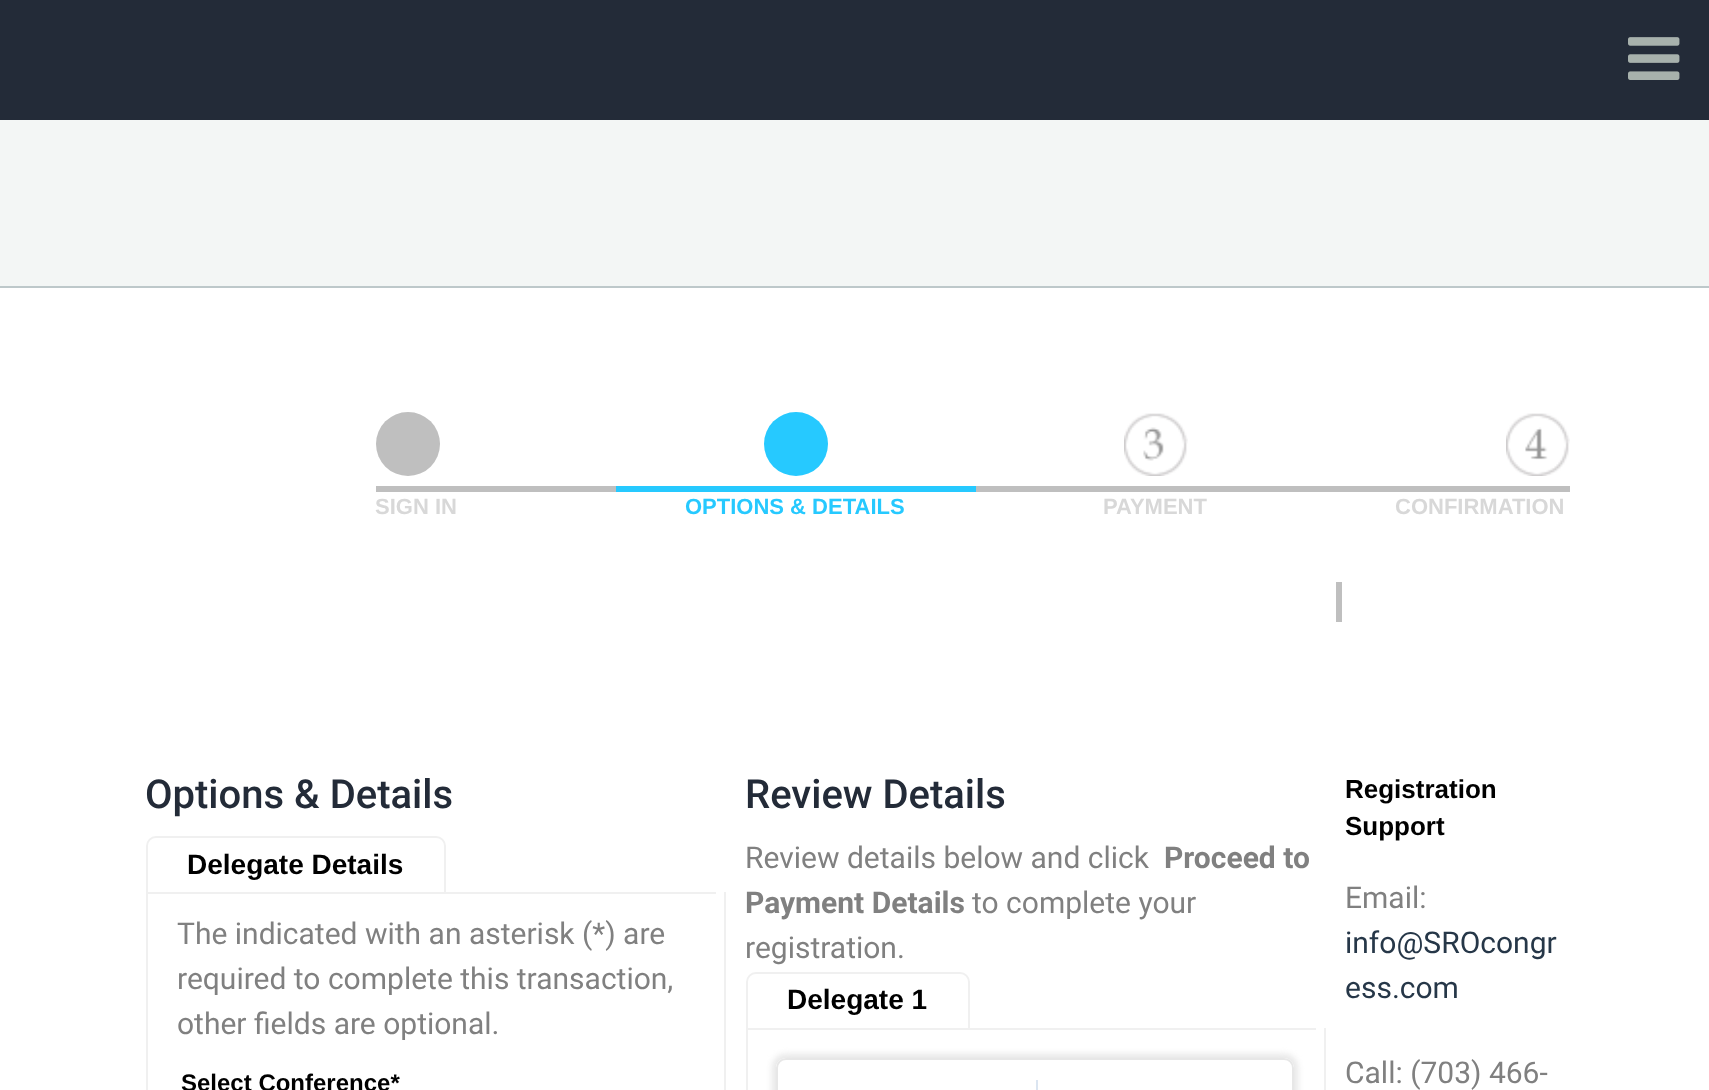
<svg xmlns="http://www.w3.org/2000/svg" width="1709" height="1090">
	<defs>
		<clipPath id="clip1"><path d="M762 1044H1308V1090H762ZM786 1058H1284C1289.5 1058 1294 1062.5 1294 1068V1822H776V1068C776 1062.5 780.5 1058 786 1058Z" clip-rule="evenodd" /></clipPath>
	</defs>
	<rect width="100%" height="100%" fill="#FFFFFF" />
	<rect x="0" y="120" width="1709" height="166" fill="#F3F6F5" />
	<rect x="0" y="286" width="1709" height="2" fill="#BDC8CA" />
	<rect x="0" y="0" width="1709" height="120" fill="#232B38" />
	<image x="1628" y="37" width="52" height="43" href="assets/img1.png" />
	<circle cx="408" cy="444" r="32" fill="#BFBFBF" />
	<rect x="376" y="486" width="240" height="6" fill="#BFBFBF" />
	<text x="375" y="514" font-family="Liberation Sans" font-size="22" font-weight="700" fill="#D8D8D8">SIGN IN</text>
	<circle cx="796" cy="444" r="32" fill="#26C9FF" />
	<rect x="616" y="486" width="360" height="6" fill="#26C9FF" />
	<text x="685" y="514" font-family="Liberation Sans" font-size="22" font-weight="700" fill="#26C9FF">OPTIONS &amp; DETAILS</text>
	<image x="1124" y="413" width="64" height="63" href="assets/img2.png" />
	<rect x="976" y="486" width="594" height="6" fill="#BFBFBF" />
	<text x="1103" y="514" font-family="Liberation Sans" font-size="22" font-weight="700" fill="#D8D8D8">PAYMENT</text>
	<image x="1506" y="413" width="64" height="63" href="assets/img3.png" />
	<text x="1395" y="514" font-family="Liberation Sans" font-size="22" font-weight="700" fill="#D8D8D8">CONFIRMATION</text>
	<rect x="1336" y="582" width="6" height="40" fill="#BFBFBF" />
	<text x="145" y="808" font-family="Roboto" font-size="40" font-weight="500" fill="#232B38">Options &amp; Details</text>
	<path d="M146 892H726V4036C726 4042 722 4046 716 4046H156C150 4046 146 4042 146 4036ZM148 892H724V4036C724 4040 720 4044 716 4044H156C152 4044 148 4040 148 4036Z" fill="#F0F0F0" fill-rule="evenodd" />
	<path d="M156 837H436C441 837 445 841 445 846V893H147V846C147 841 151 837 156 837Z" fill="#FFFFFF" stroke="#F0F0F0" stroke-width="2" />
	<text x="187" y="874" font-family="Liberation Sans" font-size="28" font-weight="700" fill="#000000">Delegate Details</text>
	<rect x="444" y="892" width="272" height="2" fill="#F0F0F0" />
	<g font-family="Roboto" font-size="30" fill="#808080">
		<text x="177" y="944">The indicated with an asterisk (*) are</text>
		<text x="177" y="989">required to complete this transaction,</text>
		<text x="177" y="1034">other fields are optional.</text>
	</g>
	<text x="181" y="1091" font-family="Liberation Sans" font-size="24" font-weight="700" fill="#000000">Select Conference*</text>
	<text x="745" y="808" font-family="Roboto" font-size="40" font-weight="500" fill="#232B38">Review Details</text>
	<text x="745" y="868" font-family="Roboto" font-size="30" fill="#808080">Review details below and click</text>
	<g font-family="Roboto" font-size="30" font-weight="700" fill="#808080">
		<text x="1164" y="868">Proceed to</text>
		<text x="745" y="913">Payment Details</text>
	</g>
	<g font-family="Roboto" font-size="30" fill="#808080">
		<text x="972" y="913">to complete your</text>
		<text x="745" y="958">registration.</text>
	</g>
	<path d="M746 1028H1326V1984C1326 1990 1322 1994 1316 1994H756C750 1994 746 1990 746 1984ZM748 1028H1324V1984C1324 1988 1320 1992 1316 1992H756C752 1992 748 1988 748 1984Z" fill="#F0F0F0" fill-rule="evenodd" />
	<path d="M756 973H960C965 973 969 977 969 982V1029H747V982C747 977 751 973 756 973Z" fill="#FFFFFF" stroke="#F0F0F0" stroke-width="2" />
	<text x="787" y="1009" font-family="Liberation Sans" font-size="28" font-weight="700" fill="#000000">Delegate 1</text>
	<rect x="968" y="1028" width="348" height="2" fill="#F0F0F0" />
	<g clip-path="url(#clip1)">
		<rect x="772" y="1054" width="526" height="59" rx="14" fill="#E7E7E7" filter="blur(3px)" />
	</g>
	<path d="M786 1059H1284C1289 1059 1293 1063 1293 1068V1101H777V1068C777 1063 781 1059 786 1059Z" fill="none" stroke="#E7E7E7" stroke-width="2" />
	<rect x="1036" y="1080" width="2" height="10" fill="#DBE5F1" />
	<g font-family="Liberation Sans" font-size="26" font-weight="700" fill="#000000">
		<text x="1345" y="798">Registration</text>
		<text x="1345" y="835">Support</text>
	</g>
	<text x="1345" y="908" font-family="Roboto" font-size="30" fill="#808080">Email:</text>
	<g font-family="Roboto" font-size="30" fill="#263748">
		<text x="1345" y="953">info@SROcongr</text>
		<text x="1345" y="998">ess.com</text>
	</g>
	<text x="1345" y="1083" font-family="Roboto" font-size="30" fill="#808080">Call: (703) 466-</text>
</svg>
